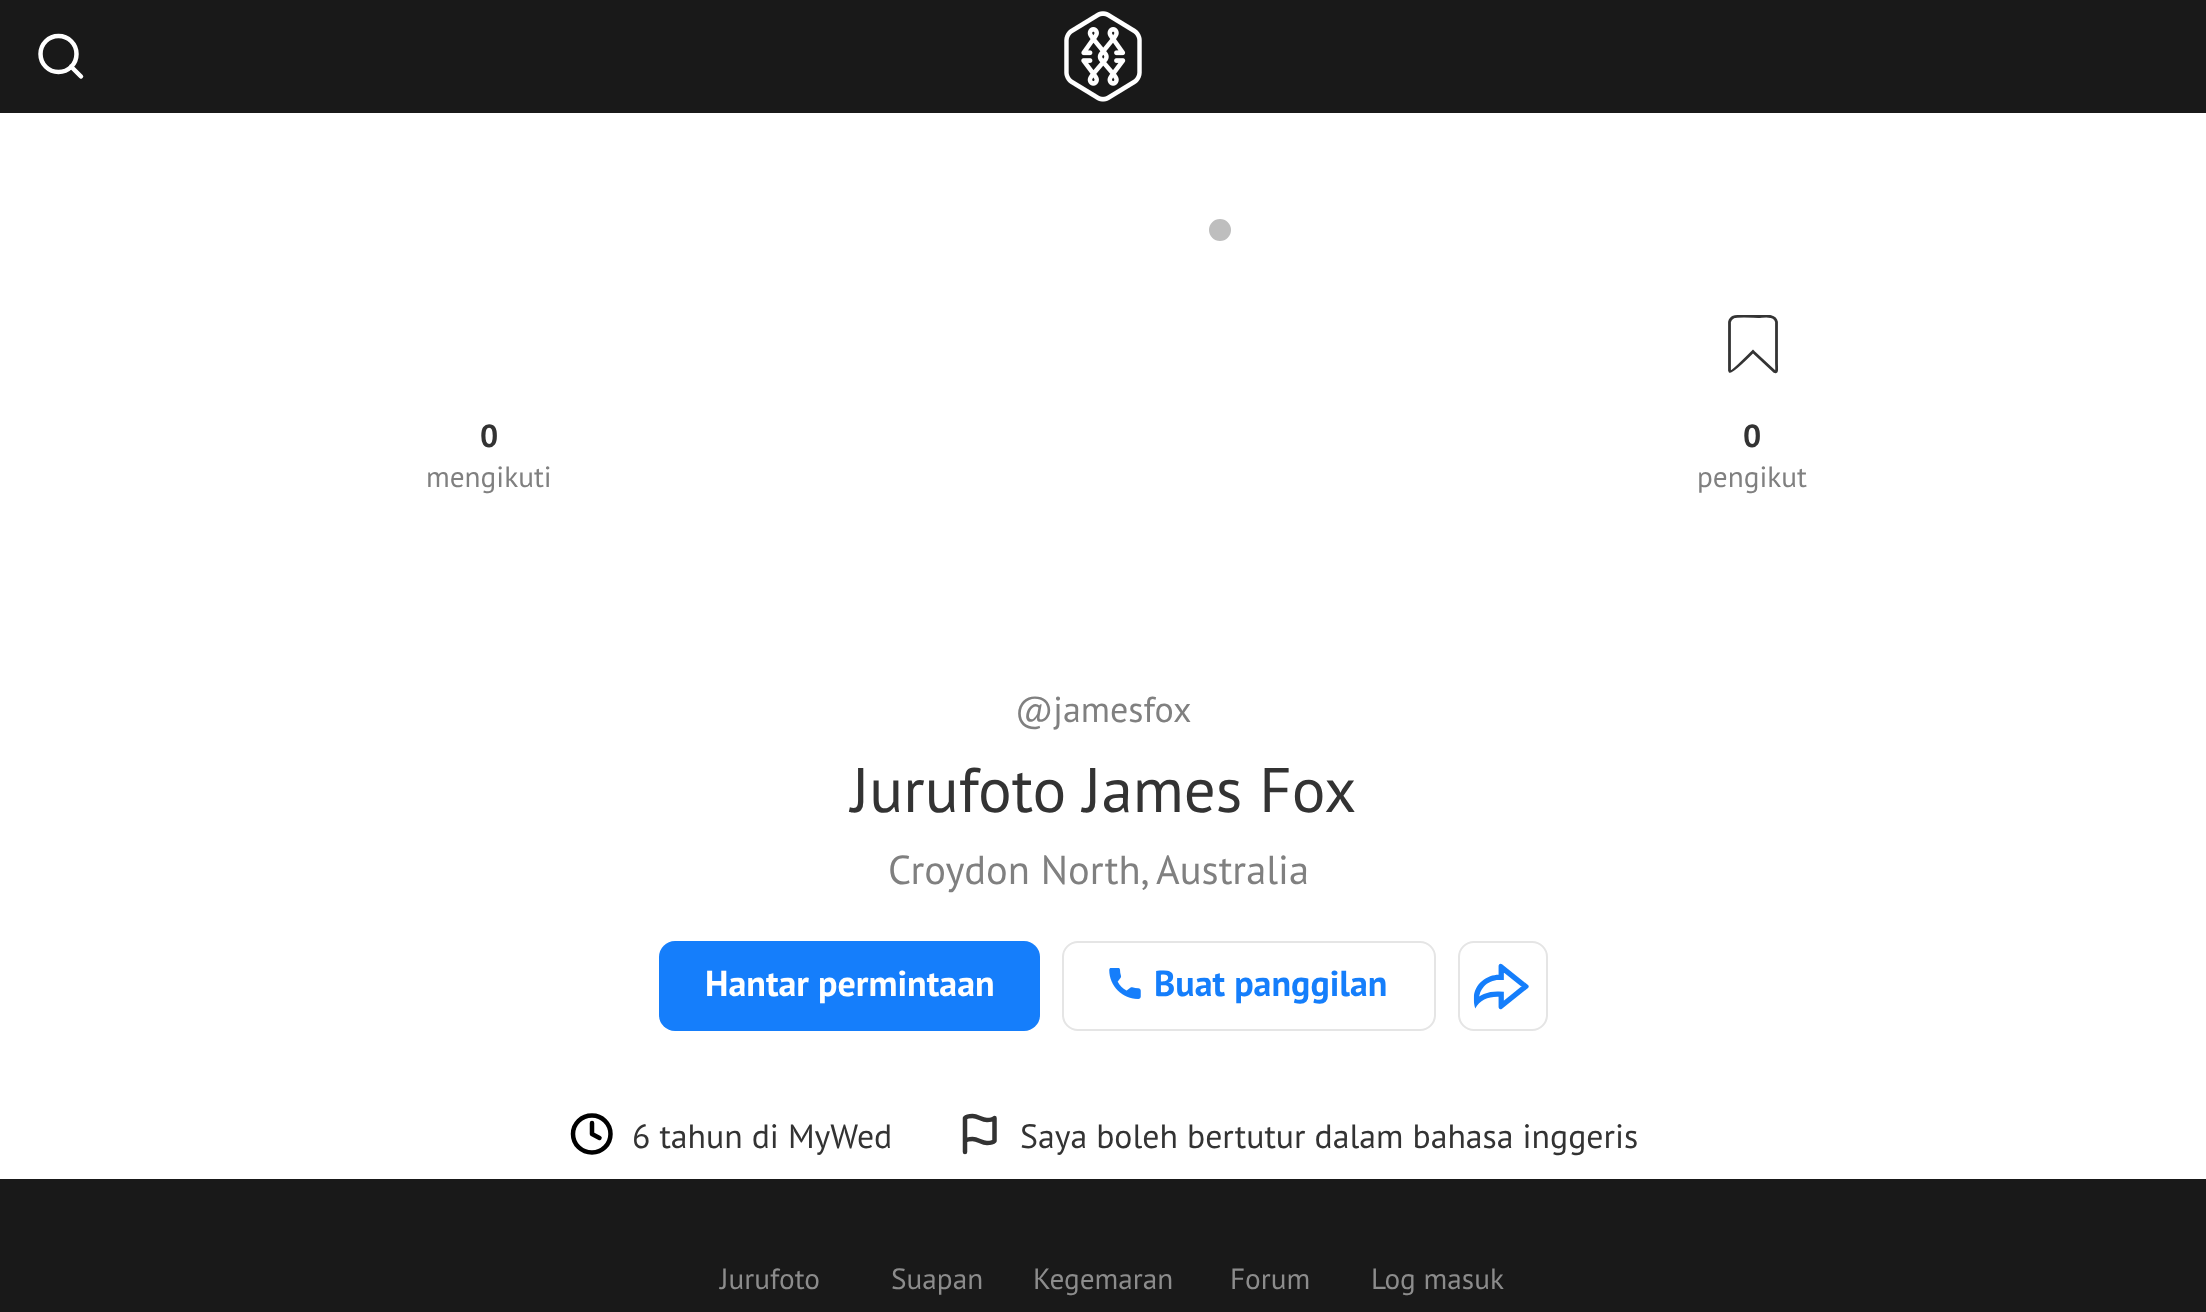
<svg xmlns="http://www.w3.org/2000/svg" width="2206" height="1312">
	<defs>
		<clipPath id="clip1"><rect x="1728" y="315" width="50" height="59" /></clipPath>
	</defs>
	<rect width="100%" height="100%" fill="#FFFFFF" />
	<rect x="0" y="0" width="2206" height="113" fill="#191919" />
	<path d="M58.5 72C68.5 72 76.5 64 76.5 54C76.5 44 68.5 36 58.5 36C48.5 36 40.5 44 40.5 54C40.5 64 48.5 72 58.5 72ZM81 76.5L71 66.5" fill="none" stroke="#FFFFFF" stroke-width="4.5" stroke-linecap="round" stroke-linejoin="round" />
	<image x="1064" y="11" width="78" height="91" href="assets/img1.png" />
	<circle cx="1220" cy="230" r="14.5" fill="#BEBEBE" stroke="#FFFFFF" stroke-width="7" />
	<text x="480" y="447" font-family="PT Sans" font-size="32" font-weight="700" fill="#333333">0</text>
	<text x="426" y="487" font-family="PT Sans" font-size="29.25" fill="#808080">mengikuti</text>
	<g clip-path="url(#clip1)">
		<path d="M1754 352.5L1753 351.5C1750 354.5 1732 372.5 1730 371.5L1729.5 370.5V322C1730 319.5 1731.5 318 1733.5 317C1737.5 315.5 1753.5 316.5 1758.5 316.5C1764 316.5 1775 314 1776.5 322V362.5C1776.5 368.5 1777.5 373 1774.5 371.5Z" fill="none" stroke="#343434" stroke-width="2.8" />
	</g>
	<text x="1743" y="447" font-family="PT Sans" font-size="32" font-weight="700" fill="#333333">0</text>
	<text x="1697" y="487" font-family="PT Sans" font-size="29.25" fill="#808080">pengikut</text>
	<text x="1015" y="722" font-family="PT Sans" font-size="36" fill="#808080">@jamesfox</text>
	<text x="851" y="812" font-family="PT Sans" font-size="63" fill="#333333">Jurufoto James Fox</text>
	<text x="888" y="884" font-family="PT Sans" font-size="40.5" fill="#808080">Croydon North, Australia</text>
	<rect x="659" y="941" width="381" height="90" rx="16" fill="#157EFB" />
	<text x="705" y="996" font-family="PT Sans" font-size="36" font-weight="700" fill="#FFFFFF">Hantar permintaan</text>
	<rect x="1063" y="942" width="372" height="88" rx="15" fill="none" stroke="#E5E5E5" stroke-width="2" />
	<image x="1109" y="968" width="32" height="31" href="assets/img2.png" />
	<text x="1154" y="996" font-family="PT Sans" font-size="36" font-weight="700" fill="#157EFB">Buat panggilan</text>
	<rect x="1459" y="942" width="88" height="88" rx="15" fill="none" stroke="#E5E5E5" stroke-width="2" />
	<image x="1473" y="963" width="56" height="47" href="assets/img3.png" />
	<path d="M592 1152.5C602 1152.5 610.5 1144.5 610.5 1134C610.5 1123.5 602 1115.5 592 1115.5C581.5 1115.5 573 1123.5 573 1134C573 1144.5 581.5 1152.5 592 1152.5ZM592 1123V1134L599.5 1138" fill="none" stroke="#000000" stroke-width="4.5" stroke-linecap="round" stroke-linejoin="round" />
	<text x="632" y="1148" font-family="PT Sans" font-size="33.75" fill="#333333">6 tahun di MyWed</text>
	<path d="M965 1141C965 1141 967 1139 972.5 1139C978 1139 981.5 1143 987 1143C992.5 1143 994.5 1141 994.5 1141V1118C994.5 1118 992.5 1120 987 1120C981.5 1120 978 1116 972.5 1116C967 1116 965 1118 965 1118ZM965 1152V1138.5" fill="none" stroke="#333333" stroke-width="4.5" stroke-linecap="round" stroke-linejoin="round" />
	<text x="1020" y="1148" font-family="PT Sans" font-size="33.75" fill="#333333">Saya boleh bertutur dalam bahasa inggeris</text>
	<rect x="0" y="1179" width="2206" height="133" fill="#191919" />
	<g font-family="PT Sans" font-size="29.25" fill="#8C8C8C">
		<text x="720" y="1289">Jurufoto</text>
		<text x="891" y="1289">Suapan</text>
		<text x="1033" y="1289">Kegemaran</text>
		<text x="1230" y="1289">Forum</text>
		<text x="1371" y="1289">Log masuk</text>
	</g>
</svg>
